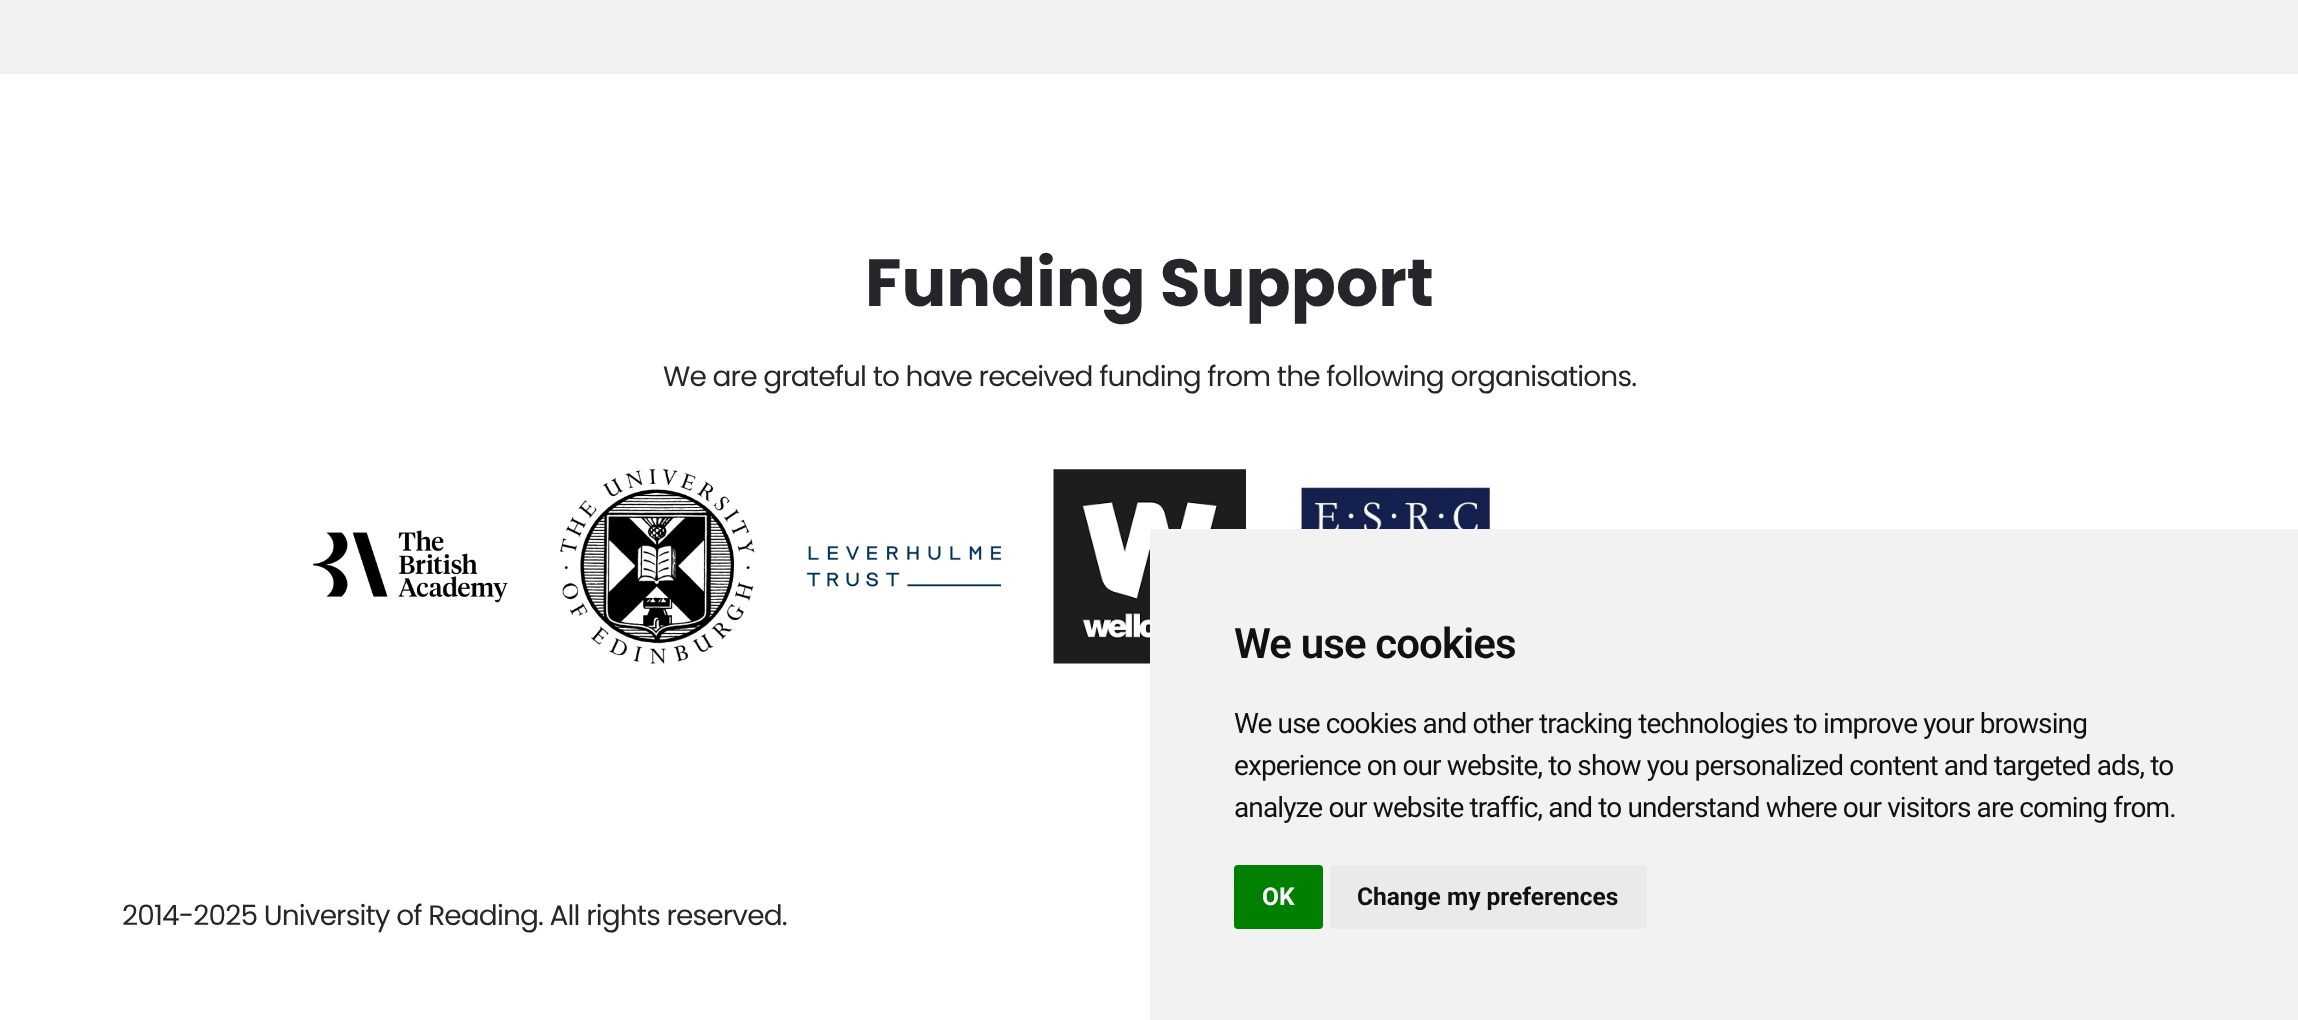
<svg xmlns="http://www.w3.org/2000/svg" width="2298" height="1020">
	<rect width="100%" height="100%" fill="#FFFFFF" />
	<rect x="0" y="0" width="2298" height="74" fill="#F2F2F2" />
	<text x="865" y="306" font-family="Poppins" font-size="66.5" font-weight="700" fill="#26262A">Funding Support</text>
	<text x="663" y="386" font-family="Poppins" font-size="28" letter-spacing="-0.88" fill="#26262A">We are grateful to have received funding from the following organisations.</text>
	<image x="560" y="469" width="195" height="195" href="assets/img1.png" />
	<image x="1053" y="469" width="193" height="195" href="assets/img2.png" />
	<image x="1298" y="485" width="195" height="44" href="assets/img3.png" />
	<image x="313" y="530" width="195" height="73" href="assets/img4.png" />
	<image x="806" y="546" width="195" height="41" href="assets/img5.png" />
	<text x="122" y="925" font-family="Poppins" font-size="28" letter-spacing="-0.88" fill="#26262A">2014-2025 University of Reading. All rights reserved.</text>
	<rect x="1150" y="529" width="1148" height="491" fill="#F2F2F2" />
	<text x="1234" y="658" font-family="Roboto" font-size="42" font-weight="600" letter-spacing="-0.88" fill="#111111">We use cookies</text>
	<g font-family="Roboto" font-size="28" letter-spacing="-0.88" fill="#111111">
		<text x="1234" y="733">We use cookies and other tracking technologies to improve your browsing</text>
		<text x="1234" y="775">experience on our website, to show you personalized content and targeted ads, to</text>
		<text x="1234" y="817">analyze our website traffic, and to understand where our visitors are coming from.</text>
	</g>
	<rect x="1234" y="865" width="89" height="64" rx="4" fill="#008000" />
	<text x="1262" y="905" font-family="Roboto" font-size="24.5" font-weight="700" fill="#FFFFFF">OK</text>
	<rect x="1330" y="865" width="317" height="64" rx="4" fill="#EAEAEA" />
	<text x="1357" y="905" font-family="Roboto" font-size="24.5" font-weight="700" fill="#111111">Change my preferences</text>
</svg>
